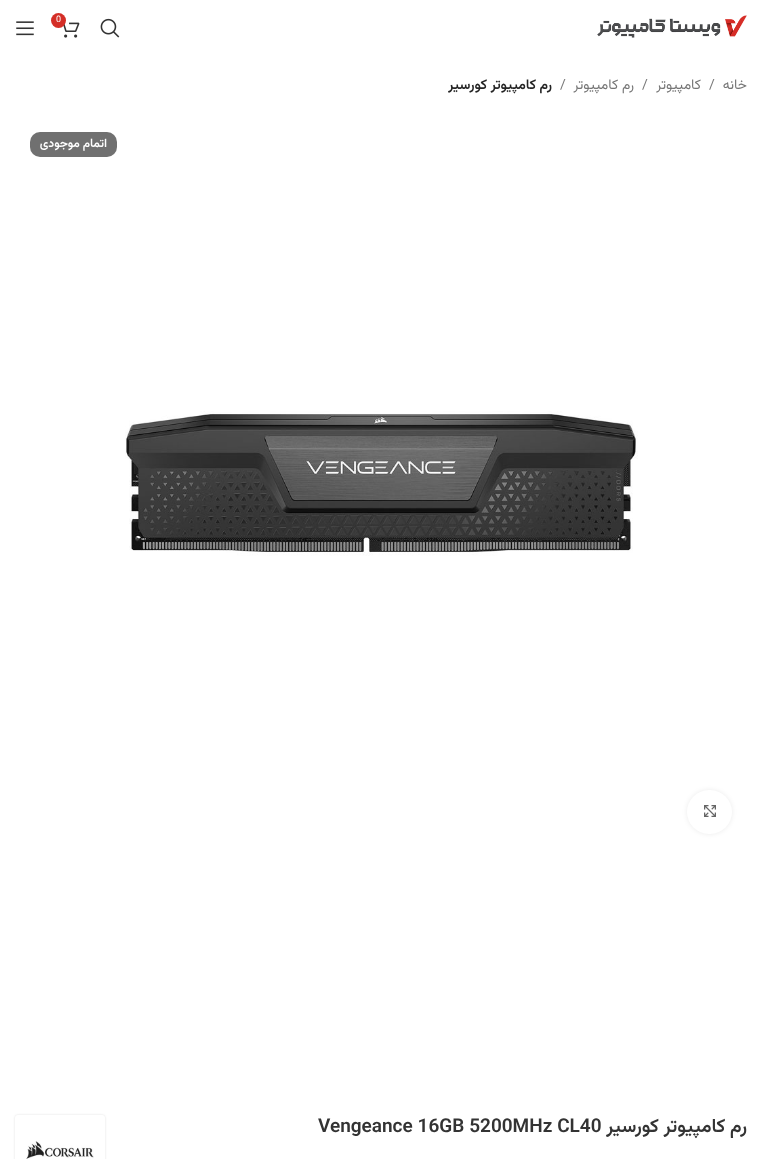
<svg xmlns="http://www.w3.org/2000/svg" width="762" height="1159">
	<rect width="100%" height="100%" fill="#FFFFFF" />
	<image x="597" y="15" width="150" height="23" href="assets/img1.png" />
	<image x="100" y="18" width="20" height="20" href="assets/img2.png" />
	<image x="63" y="22" width="17" height="16" href="assets/img3.png" />
	<circle cx="58.5" cy="20.5" r="7.5" fill="#D42E27" />
	<text x="56" y="22" font-family="Vazirmatn" font-size="9" fill="#FFFFFF">0</text>
	<image x="16" y="21" width="18" height="15" href="assets/img4.png" />
	<text x="747" y="89" font-family="Vazirmatn" font-size="14" direction="rtl" fill="#767676">خانه</text>
	<text x="709" y="89" font-family="Vazirmatn" font-size="14" fill="#767676">/</text>
	<text x="701" y="89" font-family="Vazirmatn" font-size="14" direction="rtl" fill="#767676">کامپیوتر</text>
	<text x="642" y="89" font-family="Vazirmatn" font-size="14" fill="#767676">/</text>
	<text x="634" y="89" font-family="Vazirmatn" font-size="14" direction="rtl" fill="#767676">رم کامپیوتر</text>
	<text x="560" y="89" font-family="Vazirmatn" font-size="14" fill="#767676">/</text>
	<text x="552" y="89" font-family="Vazirmatn" font-size="14" font-weight="600" direction="rtl" fill="#242424">رم کامپیوتر کورسیر</text>
	<rect x="30" y="132" width="87" height="25" rx="10" fill="#707070" />
	<text x="107" y="147" font-family="Vazirmatn" font-size="12" font-weight="600" direction="rtl" fill="#FFFFFF">اتمام موجودی</text>
	<image x="125" y="411" width="513" height="145" href="assets/img5.png" />
	<rect x="687" y="790" width="45" height="44" rx="22" fill="#000000" fill-opacity="0.08" filter="blur(2.5px)" />
	<rect x="687" y="790" width="45" height="44" rx="22" fill="#FFFFFF" />
	<image x="704" y="805" width="12" height="12" href="assets/img6.png" />
	<text x="747" y="1132" font-family="Vazirmatn" font-size="19" font-weight="600" direction="rtl" fill="#333333">رم کامپیوتر کورسیر</text>
	<text x="318" y="1132" font-family="Vazirmatn" font-size="19" font-weight="600" fill="#333333">Vengeance 16GB 5200MHz CL40</text>
	<rect x="15" y="1115" width="90" height="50" rx="3" fill="#000000" fill-opacity="0.12" filter="blur(1px)" />
	<rect x="15" y="1115" width="90" height="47" rx="3" fill="#FFFFFF" />
	<image x="26" y="1141" width="68" height="18" href="assets/img7.png" />
</svg>
